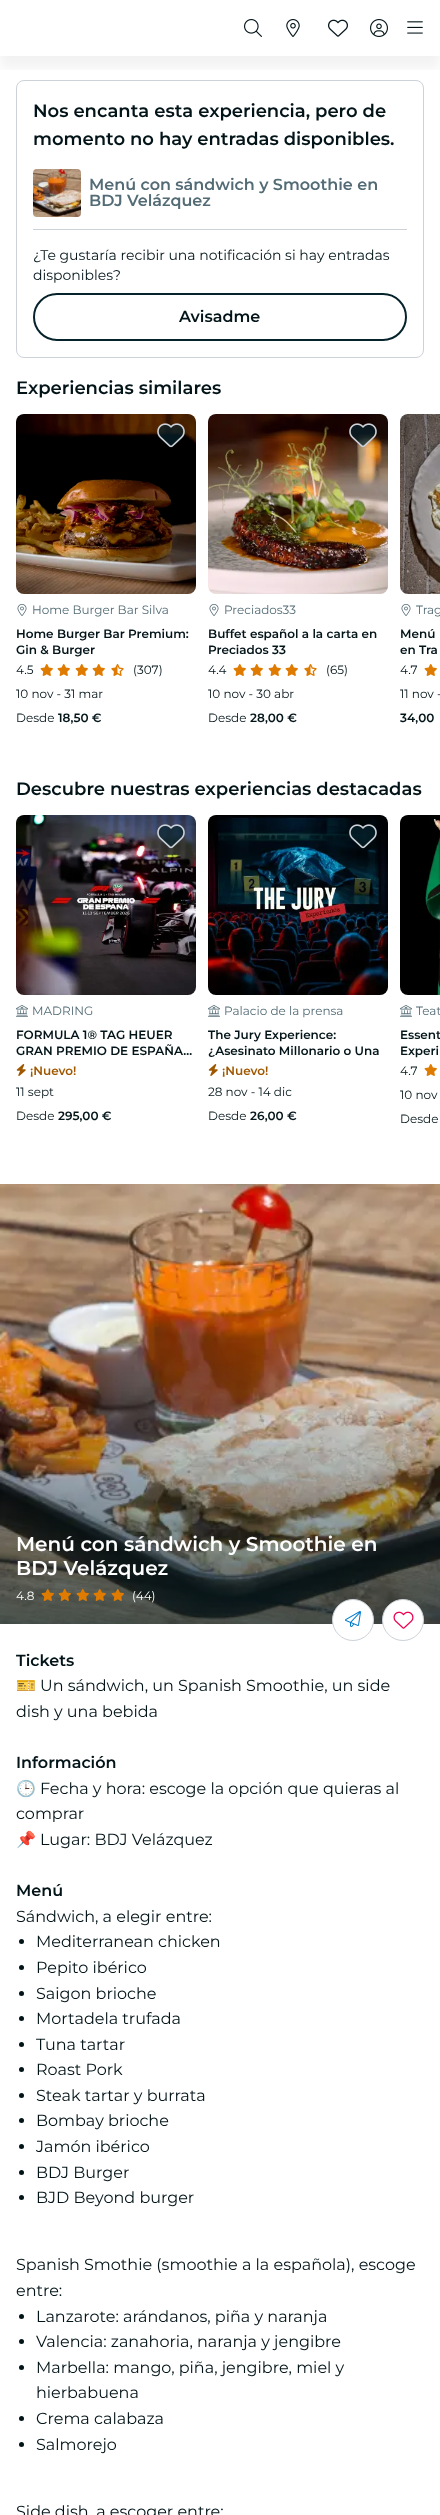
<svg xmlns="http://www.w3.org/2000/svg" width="440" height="2515">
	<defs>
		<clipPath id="clip1"><rect x="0" y="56" width="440" height="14" /></clipPath>
	</defs>
	<rect width="100%" height="100%" fill="#FFFFFF" />
	<rect x="16.5" y="80.5" width="407" height="277" rx="7.5" fill="none" stroke="#CCD2D8" />
	<g clip-path="url(#clip1)">
		<rect x="0" y="12" width="440" height="56" fill="#000000" fill-opacity="0.05" filter="blur(6px)" />
	</g>
	<image x="244" y="19" width="18" height="18" href="assets/img1.png" />
	<image x="286" y="19" width="14" height="18" href="assets/img2.png" />
	<image x="328" y="19" width="20" height="18" href="assets/img3.png" />
	<image x="370" y="19" width="18" height="18" href="assets/img4.png" />
	<image x="407" y="21" width="16" height="13" href="assets/img5.png" />
	<g font-family="Montserrat" font-size="18" font-weight="600" fill="#031419">
		<text x="33" y="117">Nos encanta esta experiencia, pero de</text>
		<text x="33" y="145">momento no hay entradas disponibles.</text>
	</g>
	<rect x="33" y="229" width="374" height="1" fill="#CCD2D8" />
	<image x="33" y="169" width="48" height="48" href="assets/img6.png" />
	<g font-family="Montserrat" font-size="16" font-weight="600" fill="#536B75">
		<text x="89" y="190">Menú con sándwich y Smoothie en</text>
		<text x="89" y="206">BDJ Velázquez</text>
	</g>
	<g font-family="Montserrat" font-size="14" fill="#031419">
		<text x="33" y="260">¿Te gustaría recibir una notificación si hay entradas</text>
		<text x="33" y="280">disponibles?</text>
	</g>
	<rect x="34" y="294" width="372" height="46" rx="23" fill="none" stroke="#06232C" stroke-width="2" />
	<text x="179" y="322" font-family="Montserrat" font-size="16" font-weight="600" fill="#031419">Avisadme</text>
	<text x="16" y="394" font-family="Montserrat" font-size="18" font-weight="600" fill="#031419">Experiencias similares</text>
	<image x="16" y="414" width="180" height="180" href="assets/img8.png" />
	<image x="157" y="423" width="28" height="25" href="assets/img7.png" />
	<image x="17" y="604" width="10" height="12" href="assets/img9.png" />
	<text x="32" y="614" font-family="Montserrat" font-size="12" fill="#536B75">Home Burger Bar Silva</text>
	<g font-family="Montserrat" font-size="12" font-weight="600" fill="#031419">
		<text x="16" y="638">Home Burger Bar Premium:</text>
		<text x="16" y="654">Gin &amp; Burger</text>
	</g>
	<text x="16" y="674" font-family="Montserrat" font-size="12" fill="#031419">4.5</text>
	<image x="40" y="664" width="13" height="12" href="assets/img10.png" />
	<image x="57" y="664" width="13" height="12" href="assets/img10.png" />
	<image x="75" y="664" width="13" height="12" href="assets/img10.png" />
	<image x="92" y="664" width="13" height="12" href="assets/img10.png" />
	<image x="111" y="664" width="13" height="12" href="assets/img11.png" />
	<g font-family="Montserrat" font-size="12" fill="#031419">
		<text x="133" y="674">(307)</text>
		<text x="16" y="698">10 nov - 31 mar</text>
		<text x="16" y="722">Desde</text>
	</g>
	<text x="58" y="722" font-family="Montserrat" font-size="12" font-weight="600" fill="#031419">18,50 €</text>
	<image x="208" y="414" width="180" height="180" href="assets/img13.png" />
	<image x="349" y="423" width="28" height="25" href="assets/img12.png" />
	<image x="209" y="604" width="10" height="12" href="assets/img9.png" />
	<text x="224" y="614" font-family="Montserrat" font-size="12" fill="#536B75">Preciados33</text>
	<g font-family="Montserrat" font-size="12" font-weight="600" fill="#031419">
		<text x="208" y="638">Buffet español a la carta en</text>
		<text x="208" y="654">Preciados 33</text>
	</g>
	<text x="208" y="674" font-family="Montserrat" font-size="12" fill="#031419">4.4</text>
	<image x="233" y="664" width="13" height="12" href="assets/img10.png" />
	<image x="250" y="664" width="13" height="12" href="assets/img10.png" />
	<image x="268" y="664" width="13" height="12" href="assets/img10.png" />
	<image x="285" y="664" width="13" height="12" href="assets/img10.png" />
	<image x="304" y="664" width="13" height="12" href="assets/img11.png" />
	<g font-family="Montserrat" font-size="12" fill="#031419">
		<text x="326" y="674">(65)</text>
		<text x="208" y="698">10 nov - 30 abr</text>
		<text x="208" y="722">Desde</text>
	</g>
	<text x="250" y="722" font-family="Montserrat" font-size="12" font-weight="600" fill="#031419">28,00 €</text>
	<image x="400" y="414" width="40" height="180" href="assets/img14.png" />
	<image x="401" y="604" width="10" height="12" href="assets/img9.png" />
	<text x="416" y="614" font-family="Montserrat" font-size="12" fill="#536B75">Trag</text>
	<g font-family="Montserrat" font-size="12" font-weight="600" fill="#031419">
		<text x="400" y="638">Menú</text>
		<text x="400" y="654">en Tra</text>
	</g>
	<text x="400" y="674" font-family="Montserrat" font-size="12" fill="#031419">4.7</text>
	<image x="424" y="664" width="13" height="12" href="assets/img10.png" />
	<text x="400" y="698" font-family="Montserrat" font-size="12" fill="#031419">11 nov -</text>
	<text x="400" y="722" font-family="Montserrat" font-size="12" font-weight="600" fill="#031419">34,00</text>
	<text x="16" y="795" font-family="Montserrat" font-size="18" font-weight="600" fill="#031419">Descubre nuestras experiencias destacadas</text>
	<image x="16" y="815" width="180" height="180" href="assets/img16.png" />
	<image x="157" y="824" width="28" height="25" href="assets/img15.png" />
	<image x="16" y="1005" width="12" height="12" href="assets/img17.png" />
	<text x="32" y="1015" font-family="Montserrat" font-size="12" fill="#536B75">MADRING</text>
	<g font-family="Montserrat" font-size="12" font-weight="600" fill="#031419">
		<text x="16" y="1039">FORMULA 1® TAG HEUER</text>
		<text x="16" y="1055">GRAN PREMIO DE ESPAÑA…</text>
	</g>
	<image x="16" y="1064" width="10" height="12" href="assets/img18.png" />
	<text x="30" y="1075" font-family="Montserrat" font-size="12" font-weight="600" fill="#9F5800">¡Nuevo!</text>
	<g font-family="Montserrat" font-size="12" fill="#031419">
		<text x="16" y="1096">11 sept</text>
		<text x="16" y="1120">Desde</text>
	</g>
	<text x="58" y="1120" font-family="Montserrat" font-size="12" font-weight="600" fill="#031419">295,00 €</text>
	<image x="208" y="815" width="180" height="180" href="assets/img20.png" />
	<image x="349" y="824" width="28" height="25" href="assets/img19.png" />
	<image x="208" y="1005" width="12" height="12" href="assets/img17.png" />
	<text x="224" y="1015" font-family="Montserrat" font-size="12" fill="#536B75">Palacio de la prensa</text>
	<g font-family="Montserrat" font-size="12" font-weight="600" fill="#031419">
		<text x="208" y="1039">The Jury Experience:</text>
		<text x="208" y="1055">¿Asesinato Millonario o Una</text>
	</g>
	<image x="208" y="1064" width="10" height="12" href="assets/img18.png" />
	<text x="222" y="1075" font-family="Montserrat" font-size="12" font-weight="600" fill="#9F5800">¡Nuevo!</text>
	<g font-family="Montserrat" font-size="12" fill="#031419">
		<text x="208" y="1096">28 nov - 14 dic</text>
		<text x="208" y="1120">Desde</text>
	</g>
	<text x="250" y="1120" font-family="Montserrat" font-size="12" font-weight="600" fill="#031419">26,00 €</text>
	<image x="400" y="815" width="40" height="180" href="assets/img21.png" />
	<image x="400" y="1005" width="12" height="12" href="assets/img17.png" />
	<text x="416" y="1015" font-family="Montserrat" font-size="12" fill="#536B75">Teat</text>
	<g font-family="Montserrat" font-size="12" font-weight="600" fill="#031419">
		<text x="400" y="1039">Essent</text>
		<text x="400" y="1055">Experi</text>
	</g>
	<text x="400" y="1075" font-family="Montserrat" font-size="12" fill="#031419">4.7</text>
	<image x="424" y="1064" width="13" height="12" href="assets/img10.png" />
	<g font-family="Montserrat" font-size="12" fill="#031419">
		<text x="400" y="1099">10 nov</text>
		<text x="400" y="1123">Desde</text>
	</g>
	<image x="0" y="1184" width="440" height="440" href="assets/img22.png" />
	<g font-family="Montserrat" font-size="20" font-weight="600" fill="#FFFFFF">
		<text x="16" y="1551">Menú con sándwich y Smoothie en</text>
		<text x="16" y="1575">BDJ Velázquez</text>
	</g>
	<text x="16" y="1600" font-family="Montserrat" font-size="12" fill="#FFFFFF">4.8</text>
	<image x="41" y="1589" width="13" height="12" href="assets/img23.png" />
	<image x="58" y="1589" width="13" height="12" href="assets/img24.png" />
	<image x="76" y="1589" width="13" height="12" href="assets/img25.png" />
	<image x="93" y="1589" width="13" height="12" href="assets/img26.png" />
	<image x="111" y="1589" width="13" height="12" href="assets/img27.png" />
	<text x="132" y="1600" font-family="Montserrat" font-size="12" fill="#FFFFFF">(44)</text>
	<circle cx="353" cy="1620" r="20.5" fill="#FFFFFF" stroke="#CCD2D8" />
	<image x="345" y="1611" width="16" height="16" href="assets/img28.png" />
	<circle cx="403" cy="1620" r="20.5" fill="#FFFFFF" stroke="#CCD2D8" />
	<image x="393" y="1611" width="21" height="18" href="assets/img29.png" />
	<text x="16" y="1666" font-family="Montserrat" font-size="16" font-weight="600" fill="#031419">Tickets</text>
	<text x="16" y="1691" font-family="Noto Color Emoji" font-size="16" fill="#031419">🎫</text>
	<g font-family="Montserrat" font-size="16" fill="#031419">
		<text x="40" y="1691">Un sándwich, un Spanish Smoothie, un side</text>
		<text x="16" y="1717">dish y una bebida</text>
	</g>
	<text x="16" y="1768" font-family="Montserrat" font-size="16" font-weight="600" fill="#031419">Información</text>
	<text x="16" y="1794" font-family="Noto Color Emoji" font-size="16" fill="#031419">🕒</text>
	<g font-family="Montserrat" font-size="16" fill="#031419">
		<text x="40" y="1794">Fecha y hora: escoge la opción que quieras al</text>
		<text x="16" y="1819">comprar</text>
	</g>
	<text x="16" y="1845" font-family="Noto Color Emoji" font-size="16" fill="#031419">📌</text>
	<text x="40" y="1845" font-family="Montserrat" font-size="16" fill="#031419">Lugar: BDJ Velázquez</text>
	<text x="16" y="1896" font-family="Montserrat" font-size="16" font-weight="600" fill="#031419">Menú</text>
	<text x="16" y="1922" font-family="Montserrat" font-size="16" fill="#031419">Sándwich, a elegir entre:</text>
	<circle cx="21.5" cy="1941.5" r="2.5" fill="#031419" />
	<text x="36" y="1947" font-family="Montserrat" font-size="16" fill="#031419">Mediterranean chicken</text>
	<circle cx="21.5" cy="1967.5" r="2.5" fill="#031419" />
	<text x="36" y="1973" font-family="Montserrat" font-size="16" fill="#031419">Pepito ibérico</text>
	<circle cx="21.5" cy="1993.5" r="2.5" fill="#031419" />
	<text x="36" y="1999" font-family="Montserrat" font-size="16" fill="#031419">Saigon brioche</text>
	<circle cx="21.5" cy="2018.5" r="2.5" fill="#031419" />
	<text x="36" y="2024" font-family="Montserrat" font-size="16" fill="#031419">Mortadela trufada</text>
	<circle cx="21.5" cy="2044.5" r="2.5" fill="#031419" />
	<text x="36" y="2050" font-family="Montserrat" font-size="16" fill="#031419">Tuna tartar</text>
	<circle cx="21.5" cy="2069.5" r="2.5" fill="#031419" />
	<text x="36" y="2075" font-family="Montserrat" font-size="16" fill="#031419">Roast Pork</text>
	<circle cx="21.5" cy="2095.5" r="2.5" fill="#031419" />
	<text x="36" y="2101" font-family="Montserrat" font-size="16" fill="#031419">Steak tartar y burrata</text>
	<circle cx="21.5" cy="2120.5" r="2.5" fill="#031419" />
	<text x="36" y="2126" font-family="Montserrat" font-size="16" fill="#031419">Bombay brioche</text>
	<circle cx="21.5" cy="2146.5" r="2.5" fill="#031419" />
	<text x="36" y="2152" font-family="Montserrat" font-size="16" fill="#031419">Jamón ibérico</text>
	<circle cx="21.5" cy="2172.5" r="2.5" fill="#031419" />
	<text x="36" y="2178" font-family="Montserrat" font-size="16" fill="#031419">BDJ Burger</text>
	<circle cx="21.5" cy="2197.5" r="2.5" fill="#031419" />
	<g font-family="Montserrat" font-size="16" fill="#031419">
		<text x="36" y="2203">BJD Beyond burger</text>
		<text x="16" y="2270">Spanish Smothie (smoothie a la española), escoge</text>
		<text x="16" y="2296">entre:</text>
	</g>
	<circle cx="21.5" cy="2316.5" r="2.5" fill="#031419" />
	<text x="36" y="2322" font-family="Montserrat" font-size="16" fill="#031419">Lanzarote: arándanos, piña y naranja</text>
	<circle cx="21.5" cy="2341.5" r="2.5" fill="#031419" />
	<text x="36" y="2347" font-family="Montserrat" font-size="16" fill="#031419">Valencia: zanahoria, naranja y jengibre</text>
	<circle cx="21.5" cy="2367.5" r="2.5" fill="#031419" />
	<g font-family="Montserrat" font-size="16" fill="#031419">
		<text x="36" y="2373">Marbella: mango, piña, jengibre, miel y</text>
		<text x="36" y="2398">hierbabuena</text>
	</g>
	<circle cx="21.5" cy="2418.5" r="2.5" fill="#031419" />
	<text x="36" y="2424" font-family="Montserrat" font-size="16" fill="#031419">Crema calabaza</text>
	<circle cx="21.5" cy="2444.5" r="2.5" fill="#031419" />
	<g font-family="Montserrat" font-size="16" fill="#031419">
		<text x="36" y="2450">Salmorejo</text>
		<text x="16" y="2517">Side dish, a escoger entre:</text>
	</g>
</svg>
